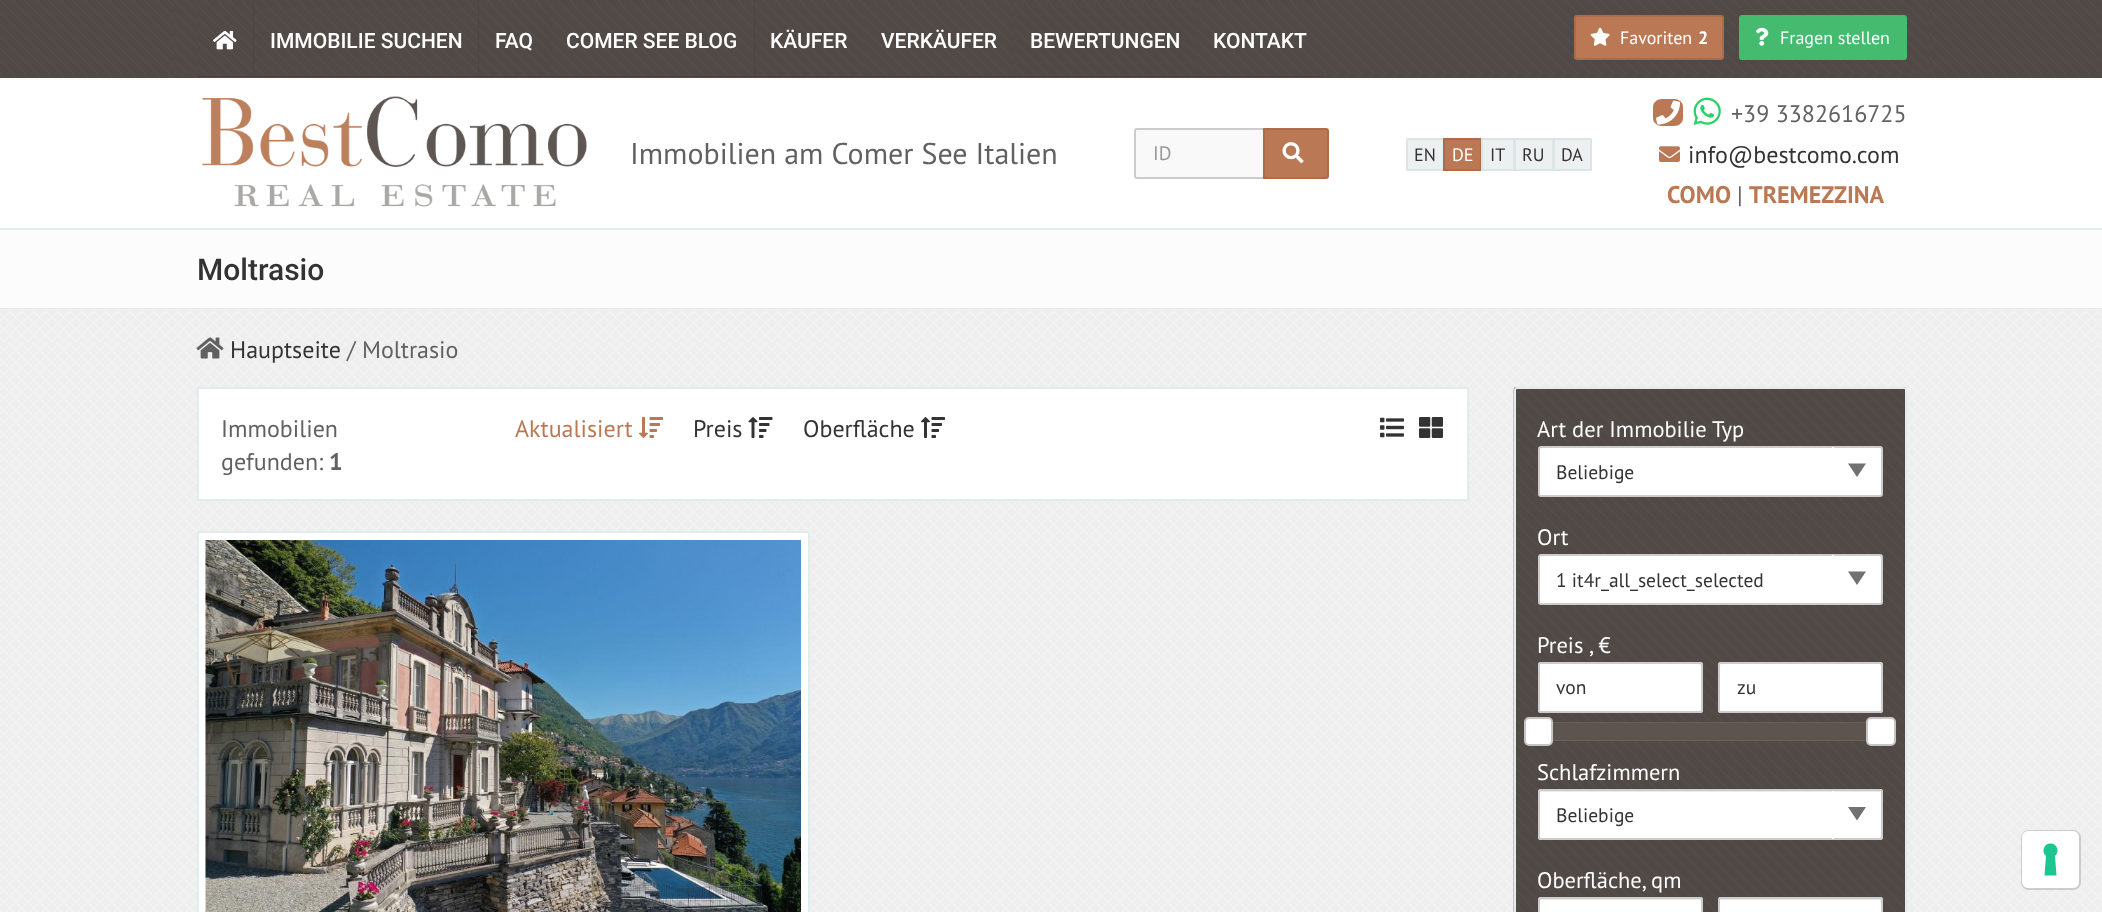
<svg xmlns="http://www.w3.org/2000/svg" width="2102" height="912">
	<rect width="100%" height="100%" fill="#FFFFFF" />
	<image x="0" y="0" width="2102" height="78" href="assets/img1.png" />
	<image x="174" y="0" width="1755" height="74" href="assets/img2.png" />
	<image x="1323" y="0" width="582" height="75" href="assets/img3.png" />
	<rect x="197" y="0" width="282" height="77" fill="#403B37" />
	<image x="197" y="0" width="57" height="77" href="assets/img4.png" />
	<image x="213" y="30" width="24" height="20" href="assets/img5.png" />
	<image x="253" y="0" width="226" height="77" href="assets/img6.png" />
	<text x="270" y="48" font-family="Roboto" font-size="21" font-weight="500" fill="#FFFFFF">IMMOBILIE SUCHEN</text>
	<rect x="479" y="76" width="70" height="1" fill="#403B37" />
	<image x="478" y="0" width="71" height="77" href="assets/img7.png" />
	<text x="495" y="48" font-family="Roboto" font-size="21" font-weight="500" fill="#FFFFFF">FAQ</text>
	<rect x="549" y="0" width="206" height="77" fill="#403B37" />
	<image x="549" y="0" width="206" height="77" href="assets/img8.png" />
	<text x="566" y="48" font-family="Roboto" font-size="21" font-weight="500" fill="#FFFFFF">COMER SEE BLOG</text>
	<rect x="755" y="76" width="568" height="1" fill="#403B37" />
	<image x="754" y="0" width="110" height="77" href="assets/img9.png" />
	<text x="770" y="48" font-family="Roboto" font-size="21" font-weight="500" fill="#FFFFFF">KÄUFER</text>
	<image x="864" y="0" width="150" height="77" href="assets/img10.png" />
	<text x="881" y="48" font-family="Roboto" font-size="21" font-weight="500" fill="#FFFFFF">VERKÄUFER</text>
	<image x="1014" y="0" width="183" height="77" href="assets/img11.png" />
	<text x="1030" y="48" font-family="Roboto" font-size="21" font-weight="500" fill="#FFFFFF">BEWERTUNGEN</text>
	<image x="1197" y="0" width="126" height="77" href="assets/img12.png" />
	<text x="1213" y="48" font-family="Roboto" font-size="21" font-weight="500" fill="#FFFFFF">KONTAKT</text>
	<rect x="1575" y="16" width="148" height="43" rx="2" fill="#BA7954" stroke="#AE6C46" stroke-width="2" />
	<image x="1590" y="27" width="20" height="19" href="assets/img13.png" />
	<text x="1620" y="44" font-family="PT Sans" font-size="18" fill="#FFFFFF">Favoriten</text>
	<text x="1698" y="44" font-family="PT Sans" font-size="18" font-weight="700" fill="#FFFFFF">2</text>
	<rect x="1740" y="16" width="166" height="43" rx="2" fill="#44BB6E" stroke="#44BB6E" stroke-width="2" />
	<image x="1755" y="27" width="14" height="19" href="assets/img14.png" />
	<text x="1780" y="44" font-family="PT Sans" font-size="18" fill="#FFFFFF">Fragen stellen</text>
	<rect x="0" y="228" width="2102" height="2" fill="#E0EDED" />
	<image x="202" y="96" width="385" height="111" href="assets/img15.png" />
	<text x="630" y="164" font-family="PT Sans" font-size="30" fill="#616161">Immobilien am Comer See Italien</text>
	<rect x="1135" y="129" width="129" height="49" rx="2" fill="#F9F9F9" stroke="#CCCCCC" stroke-width="2" />
	<text x="1153" y="160" font-family="PT Sans" font-size="19.5" fill="#999999">ID</text>
	<path d="M1264 129H1326C1327 129 1328 130 1328 131V176C1328 177 1327 178 1326 178H1264Z" fill="#BA7954" stroke="#AE6C46" stroke-width="2" />
	<image x="1282" y="142" width="22" height="22" href="assets/img16.png" />
	<path d="M1407.5 139H1444V170H1407.5C1407 170 1407 170 1407 169.5V139.5C1407 139 1407 139 1407.5 139Z" fill="#ECF0F1" stroke="#DDE4E6" stroke-width="2" />
	<text x="1414" y="161" font-family="PT Sans" font-size="18" fill="#333333">EN</text>
	<rect x="1444" y="139" width="37" height="31" fill="#BA7954" stroke="#AE6C46" stroke-width="2" />
	<text x="1452" y="161" font-family="PT Sans" font-size="18" fill="#FFFFFF">DE</text>
	<rect x="1482" y="139" width="32" height="31" fill="#ECF0F1" stroke="#DDE4E6" stroke-width="2" />
	<text x="1490" y="161" font-family="PT Sans" font-size="18" fill="#333333">IT</text>
	<rect x="1515" y="139" width="38" height="31" fill="#ECF0F1" stroke="#DDE4E6" stroke-width="2" />
	<text x="1522" y="161" font-family="PT Sans" font-size="18" fill="#333333">RU</text>
	<path d="M1554 139H1590.5C1591 139 1591 139 1591 139.5V169.5C1591 170 1591 170 1590.5 170H1554Z" fill="#ECF0F1" stroke="#DDE4E6" stroke-width="2" />
	<text x="1561" y="161" font-family="PT Sans" font-size="18" fill="#333333">DA</text>
	<path d="M1662 99H1674C1679 99 1683 102.5 1683 107V118C1683 122.5 1679 126 1674 126H1662C1657 126 1653 122.5 1653 118V107C1653 102.5 1657 99 1662 99Z" fill="#BA7954" />
	<image x="1656" y="100" width="24" height="25" href="assets/img17.png" />
	<image x="1693" y="97" width="28" height="28" href="assets/img18.png" />
	<text x="1731" y="122" font-family="PT Sans" font-size="24" fill="#616161">+39 3382616725</text>
	<image x="1659" y="146" width="21" height="16" href="assets/img19.png" />
	<text x="1688" y="163" font-family="PT Sans" font-size="24" fill="#333333">info@bestcomo.com</text>
	<text x="1667" y="203" font-family="PT Sans" font-size="24" font-weight="700" fill="#BA7954">COMO</text>
	<text x="1737" y="203" font-family="PT Sans" font-size="24" fill="#616161">|</text>
	<text x="1749" y="203" font-family="PT Sans" font-size="24" font-weight="700" fill="#BA7954">TREMEZZINA</text>
	<rect x="0" y="230" width="2102" height="78" fill="#FCFCFC" />
	<rect x="0" y="308" width="2102" height="1" fill="#E0EDED" />
	<text x="197" y="280" font-family="Roboto" font-size="30" font-weight="500" fill="#333333">Moltrasio</text>
	<image x="0" y="309" width="2102" height="33" href="assets/img20.png" />
	<image x="0" y="342" width="2102" height="570" href="assets/img22.png" />
	<image x="196" y="337" width="28" height="22" href="assets/img21.png" />
	<text x="230" y="358" font-family="PT Sans" font-size="24" fill="#333333">Hauptseite</text>
	<text x="347" y="358" font-family="PT Sans" font-size="24" fill="#616161">/ Moltrasio</text>
	<rect x="198" y="388" width="1270" height="112" fill="#FFFFFF" stroke="#E0EDED" stroke-width="2" />
	<g font-family="PT Sans" font-size="24" fill="#616161">
		<text x="221" y="437">Immobilien</text>
		<text x="221" y="470">gefunden:</text>
	</g>
	<text x="329" y="470" font-family="PT Sans" font-size="24" font-weight="700" fill="#616161">1</text>
	<text x="515" y="437" font-family="PT Sans" font-size="24" fill="#BA7954">Aktualisiert</text>
	<image x="639" y="417" width="24" height="21" href="assets/img23.png" />
	<text x="693" y="437" font-family="PT Sans" font-size="24" fill="#333333">Preis</text>
	<image x="748" y="417" width="25" height="21" href="assets/img24.png" />
	<text x="803" y="437" font-family="PT Sans" font-size="24" fill="#333333">Oberfläche</text>
	<image x="921" y="417" width="24" height="21" href="assets/img25.png" />
	<image x="1380" y="417" width="24" height="21" href="assets/img26.png" />
	<image x="1419" y="417" width="24" height="21" href="assets/img27.png" />
	<rect x="198" y="532" width="611" height="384" rx="2" fill="#FFFFFF" stroke="#E0EDED" stroke-width="2" />
	<image x="205" y="540" width="596" height="372" href="assets/img28.png" />
	<image x="1513" y="387" width="394" height="525" href="assets/img29.png" />
	<rect x="1515" y="388" width="391" height="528" rx="2" fill="none" stroke="#E0EDED" stroke-width="2" />
	<text x="1537" y="437" font-family="PT Sans" font-size="22.5" fill="#FFFFFF">Art der Immobilie Typ</text>
	<rect x="1539" y="447" width="343" height="49" rx="2" fill="#FFFFFF" stroke="#CCCCCC" stroke-width="2" />
	<text x="1556" y="479" font-family="PT Sans" font-size="19.5" fill="#333333">Beliebige</text>
	<rect x="1832" y="447" width="2" height="1" fill="#FFFFFF" />
	<path d="M1848 463.5H1866L1857 477Z" fill="#717171" />
	<text x="1537" y="545" font-family="PT Sans" font-size="22.5" fill="#FFFFFF">Ort</text>
	<rect x="1539" y="555" width="343" height="49" rx="2" fill="#FFFFFF" stroke="#CCCCCC" stroke-width="2" />
	<text x="1556" y="587" font-family="PT Sans" font-size="19.5" fill="#333333">1 it4r_all_select_selected</text>
	<rect x="1832" y="555" width="2" height="1" fill="#FFFFFF" />
	<path d="M1848 571.5H1866L1857 585Z" fill="#717171" />
	<text x="1537" y="653" font-family="PT Sans" font-size="22.5" fill="#FFFFFF">Preis , €</text>
	<rect x="1538" y="662" width="165" height="51" rx="3" fill="#FFFFFF" />
	<path d="M1540 664H1700L1701 666V664C1701 664 1700 663 1700 663H1540C1540 663 1539 664 1539 664V666Z" fill="#ECECEC" />
	<rect x="1539" y="663" width="163" height="49" rx="2" fill="none" stroke="#CCCCCC" stroke-width="2" />
	<text x="1556" y="694" font-family="PT Sans" font-size="19.5" fill="#333333">von</text>
	<rect x="1718" y="662" width="165" height="51" rx="3" fill="#FFFFFF" />
	<path d="M1720 664H1880L1881 666V664C1881 664 1880 663 1880 663H1720C1720 663 1719 664 1719 664V666Z" fill="#ECECEC" />
	<rect x="1719" y="663" width="163" height="49" rx="2" fill="none" stroke="#CCCCCC" stroke-width="2" />
	<text x="1737" y="694" font-family="PT Sans" font-size="19.5" fill="#333333">zu</text>
	<rect x="1539" y="723" width="343" height="17" fill="none" stroke="#69615A" stroke-width="2" />
	<rect x="1525" y="718" width="27" height="27" rx="4" fill="#FFFFFF" stroke="#C5C5C5" stroke-width="2" />
	<rect x="1553" y="723" width="313" height="17" fill="#5B544F" />
	<rect x="1867" y="718" width="28" height="27" rx="4" fill="#FFFFFF" stroke="#C5C5C5" stroke-width="2" />
	<text x="1537" y="780" font-family="PT Sans" font-size="22.5" fill="#FFFFFF">Schlafzimmern</text>
	<rect x="1538" y="789" width="345" height="51" rx="3" fill="#FFFFFF" />
	<path d="M1540 792H1880L1881 794L1880 791H1540C1539 791 1539 793 1539 794Z" fill="#ECECEC" />
	<rect x="1539" y="790" width="343" height="49" rx="2" fill="none" stroke="#CCCCCC" stroke-width="2" />
	<text x="1556" y="822" font-family="PT Sans" font-size="19.5" fill="#333333">Beliebige</text>
	<rect x="1832" y="791" width="2" height="48" fill="#FFFFFF" />
	<path d="M1848 807H1866L1857 820.5Z" fill="#717171" />
	<text x="1537" y="888" font-family="PT Sans" font-size="22.5" fill="#FFFFFF">Oberfläche, qm</text>
	<rect x="1538" y="897" width="165" height="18" rx="3" fill="#FFFFFF" />
	<path d="M1540 900H1700L1701 902V900C1701 900 1700 899 1700 899H1540C1540 899 1539 900 1539 900V902Z" fill="#ECECEC" />
	<rect x="1539" y="898" width="163" height="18" rx="2" fill="none" stroke="#CCCCCC" stroke-width="2" />
	<rect x="1718" y="897" width="165" height="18" rx="3" fill="#FFFFFF" />
	<path d="M1720 900H1880L1881 902V900C1881 900 1880 899 1880 899H1720C1720 899 1719 900 1719 900V902Z" fill="#ECECEC" />
	<rect x="1719" y="898" width="163" height="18" rx="2" fill="none" stroke="#CCCCCC" stroke-width="2" />
	<rect x="2022" y="831" width="58" height="58" rx="7" fill="none" stroke="#000000" stroke-opacity="0.15" stroke-width="2" />
	<rect x="2022" y="831" width="57" height="57" rx="6" fill="#FFFFFF" />
	<path d="M2050.5 843.5C2057 843.5 2060 851.5 2055 856L2056.5 875.5H2044.5L2046 856C2041 851.5 2044 843.5 2050.5 843.5Z" fill="#1CC691" fill-rule="evenodd" />
</svg>
